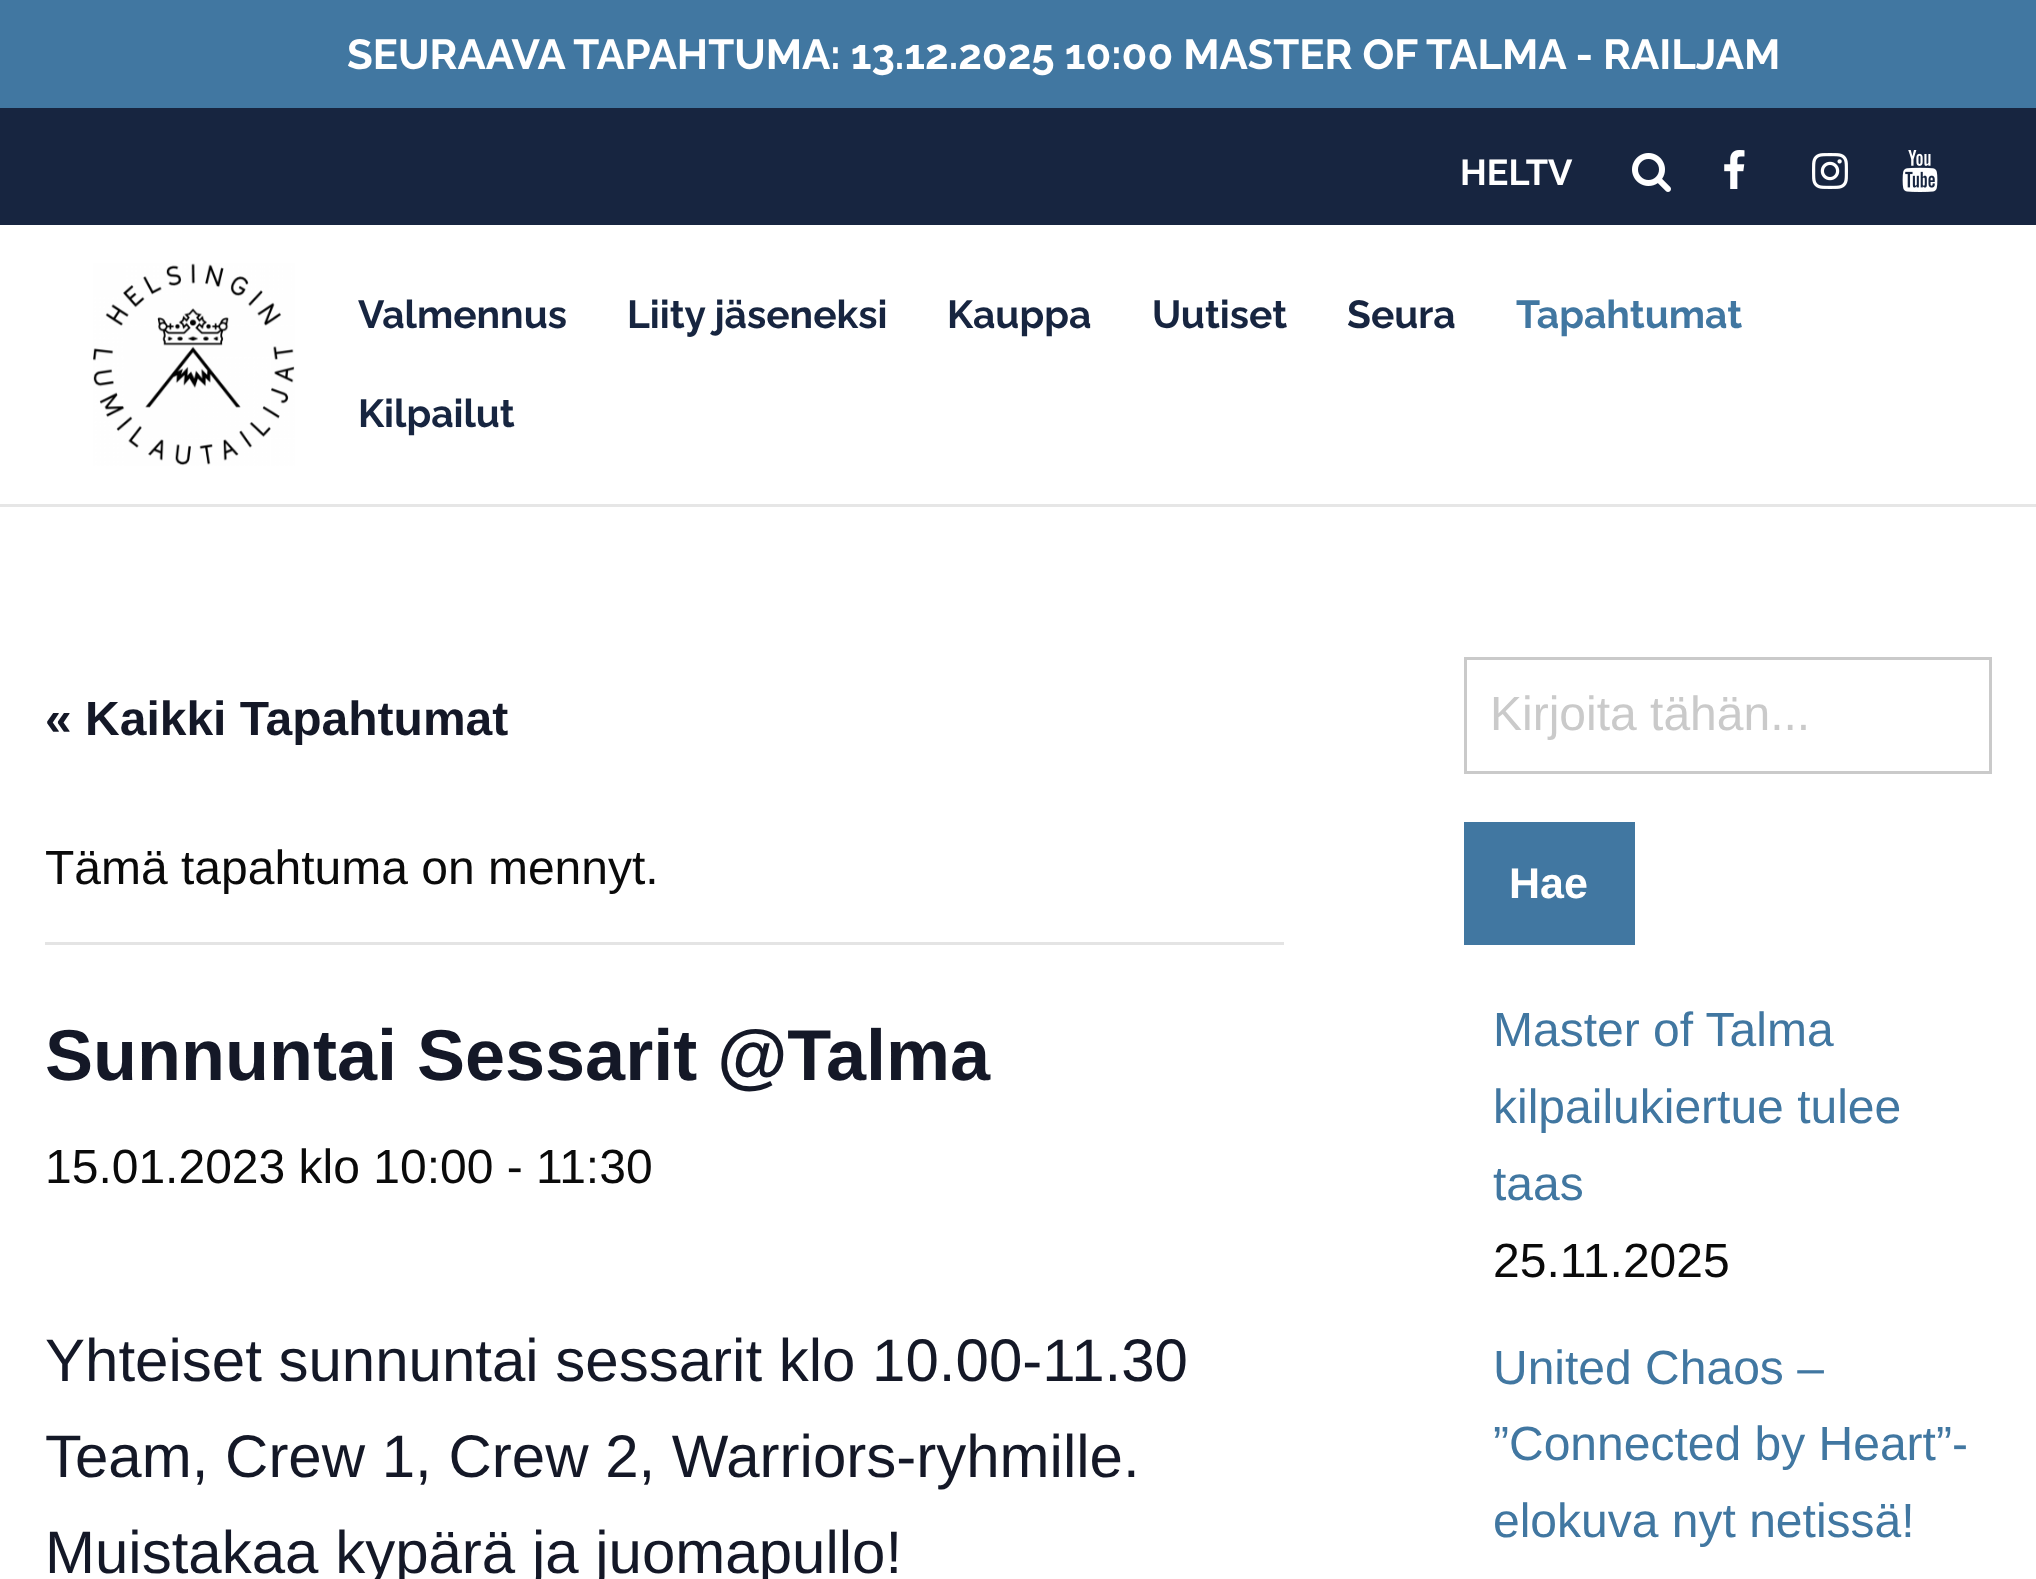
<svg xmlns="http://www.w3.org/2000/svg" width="2036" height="1579">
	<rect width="100%" height="100%" fill="#FFFFFF" />
	<rect x="0" y="0" width="2036" height="108" fill="#4177A1" />
	<text x="347" y="69" font-family="Raleway" font-size="42" font-weight="700" fill="#FFFFFF">SEURAAVA TAPAHTUMA: 13.12.2025 10:00 MASTER OF TALMA - RAILJAM</text>
	<rect x="0" y="108" width="2036" height="117" fill="#172540" />
	<text x="1460" y="185" font-family="Raleway" font-size="36" font-weight="700" fill="#FFFFFF">HELTV</text>
	<image x="1632" y="153" width="39" height="39" href="assets/img1.png" />
	<image x="1724" y="150" width="21" height="39" href="assets/img2.png" />
	<image x="1812" y="153" width="36" height="36" href="assets/img3.png" />
	<image x="1902" y="150" width="36" height="42" href="assets/img4.png" />
	<rect x="0" y="504" width="2036" height="3" fill="#E6E6E6" />
	<image x="93" y="263" width="202" height="203" href="assets/img5.png" />
	<g font-family="Raleway" font-size="39" font-weight="700" fill="#172540">
		<text x="358" y="328">Valmennus</text>
		<text x="627" y="328">Liity jäseneksi</text>
		<text x="947" y="328">Kauppa</text>
		<text x="1152" y="328">Uutiset</text>
		<text x="1347" y="328">Seura</text>
	</g>
	<text x="1516" y="328" font-family="Raleway" font-size="39" font-weight="700" fill="#4177A1">Tapahtumat</text>
	<text x="358" y="427" font-family="Raleway" font-size="39" font-weight="700" fill="#172540">Kilpailut</text>
	<text x="45" y="735" font-family="Liberation Sans" font-size="48" font-weight="700" fill="#141827">« Kaikki Tapahtumat</text>
	<rect x="45" y="942" width="1239" height="3" fill="#E4E4E4" />
	<text x="45" y="884" font-family="Liberation Sans" font-size="48" fill="#0A0A0A">Tämä tapahtuma on mennyt.</text>
	<text x="45" y="1080" font-family="Liberation Sans" font-size="72" font-weight="700" fill="#141827">Sunnuntai Sessarit @Talma</text>
	<text x="45" y="1183" font-family="Liberation Sans" font-size="48" fill="#0A0A0A">15.01.2023 klo 10:00 - 11:30</text>
	<g font-family="Liberation Sans" font-size="60" fill="#141827">
		<text x="45" y="1381">Yhteiset sunnuntai sessarit klo 10.00-11.30</text>
		<text x="45" y="1477">Team, Crew 1, Crew 2, Warriors-ryhmille.</text>
		<text x="45" y="1573">Muistakaa kypärä ja juomapullo!</text>
	</g>
	<rect x="1465.5" y="658.5" width="525" height="114" fill="none" stroke="#CACACA" stroke-width="3" />
	<text x="1490" y="730" font-family="Liberation Sans" font-size="48" fill="#CACACA">Kirjoita tähän...</text>
	<rect x="1464" y="822" width="171" height="123" fill="#4177A1" />
	<text x="1509" y="898" font-family="Liberation Sans" font-size="43" font-weight="700" fill="#FFFFFF">Hae</text>
	<g font-family="Liberation Sans" font-size="48" fill="#4177A1">
		<text x="1493" y="1046">Master of Talma</text>
		<text x="1493" y="1123">kilpailukiertue tulee</text>
		<text x="1493" y="1200">taas</text>
	</g>
	<text x="1493" y="1277" font-family="Liberation Sans" font-size="48" fill="#0A0A0A">25.11.2025</text>
	<g font-family="Liberation Sans" font-size="48" fill="#4177A1">
		<text x="1493" y="1384">United Chaos –</text>
		<text x="1493" y="1460">”Connected by Heart”-</text>
		<text x="1493" y="1537">elokuva nyt netissä!</text>
	</g>
</svg>
